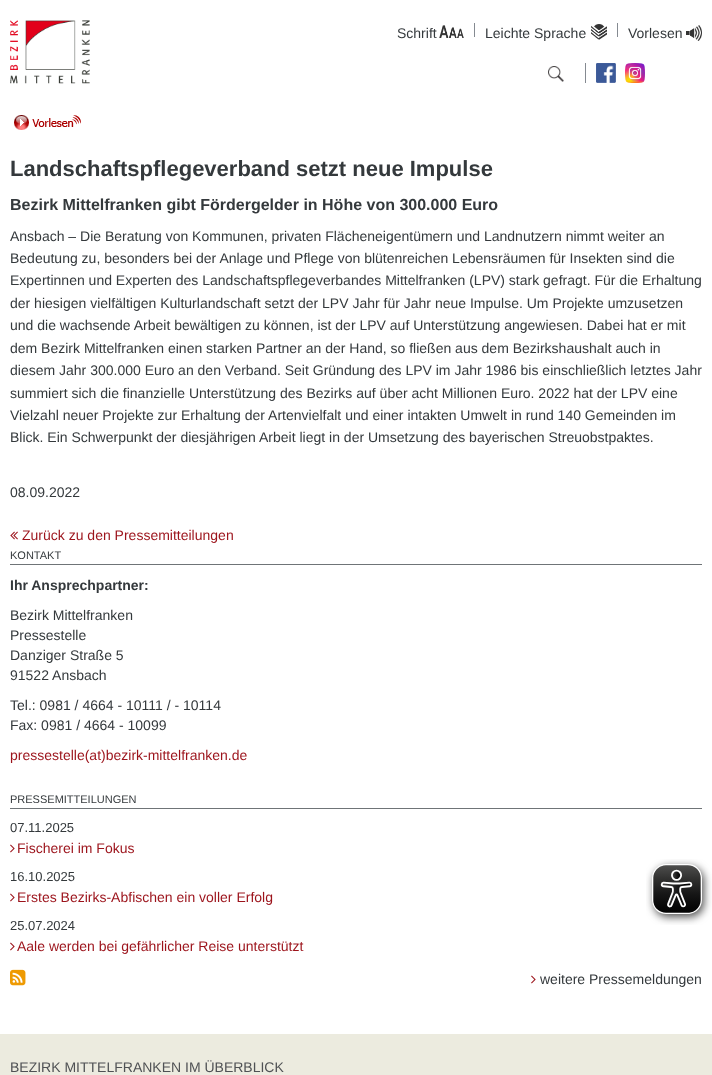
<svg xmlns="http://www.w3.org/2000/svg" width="712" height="1075">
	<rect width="100%" height="100%" fill="#FFFFFF" />
	<image x="10" y="20" width="80" height="64" href="assets/img1.png" />
	<rect x="474" y="23" width="1" height="14" fill="#858A91" />
	<text x="397" y="38" font-family="Liberation Sans" font-size="14" fill="#34393C">Schrift</text>
	<image x="439" y="25" width="25" height="13" href="assets/img2.png" />
	<rect x="617" y="23" width="1" height="14" fill="#858A91" />
	<text x="485" y="38" font-family="Liberation Sans" font-size="14" fill="#34393C">Leichte Sprache</text>
	<image x="591" y="24" width="16" height="16" href="assets/img3.png" />
	<text x="628" y="38" font-family="Liberation Sans" font-size="14" fill="#34393C">Vorlesen</text>
	<image x="686" y="25" width="16" height="16" href="assets/img4.png" />
	<image x="548" y="66" width="16" height="16" href="assets/img5.png" />
	<rect x="585" y="63" width="1" height="20" fill="#858A91" />
	<image x="596" y="63" width="20" height="20" href="assets/img6.png" />
	<image x="625" y="63" width="20" height="20" href="assets/img7.png" />
	<image x="14" y="115" width="67" height="15" href="assets/img8.png" />
	<text x="10" y="176" font-family="Liberation Sans" font-size="22" font-weight="700" fill="#34393C">Landschaftspflegeverband setzt neue Impulse</text>
	<text x="10" y="210" font-family="Liberation Sans" font-size="16" font-weight="700" fill="#34393C">Bezirk Mittelfranken gibt Fördergelder in Höhe von 300.000 Euro</text>
	<g font-family="Liberation Sans" font-size="14" fill="#34393C">
		<text x="10" y="241">Ansbach – Die Beratung von Kommunen, privaten Flächeneigentümern und Landnutzern nimmt weiter an</text>
		<text x="10" y="263">Bedeutung zu, besonders bei der Anlage und Pflege von blütenreichen Lebensräumen für Insekten sind die</text>
		<text x="10" y="285">Expertinnen und Experten des Landschaftspflegeverbandes Mittelfranken (LPV) stark gefragt. Für die Erhaltung</text>
		<text x="10" y="308">der hiesigen vielfältigen Kulturlandschaft setzt der LPV Jahr für Jahr neue Impulse. Um Projekte umzusetzen</text>
		<text x="10" y="330">und die wachsende Arbeit bewältigen zu können, ist der LPV auf Unterstützung angewiesen. Dabei hat er mit</text>
		<text x="10" y="353">dem Bezirk Mittelfranken einen starken Partner an der Hand, so fließen aus dem Bezirkshaushalt auch in</text>
		<text x="10" y="375">diesem Jahr 300.000 Euro an den Verband. Seit Gründung des LPV im Jahr 1986 bis einschließlich letztes Jahr</text>
		<text x="10" y="398">summiert sich die finanzielle Unterstützung des Bezirks auf über acht Millionen Euro. 2022 hat der LPV eine</text>
		<text x="10" y="420">Vielzahl neuer Projekte zur Erhaltung der Artenvielfalt und einer intakten Umwelt in rund 140 Gemeinden im</text>
		<text x="10" y="442">Blick. Ein Schwerpunkt der diesjährigen Arbeit liegt in der Umsetzung des bayerischen Streuobstpaktes.</text>
		<text x="10" y="497">08.09.2022</text>
	</g>
	<image x="10" y="531" width="8" height="9" href="assets/img9.png" />
	<text x="22" y="540" font-family="Liberation Sans" font-size="14" fill="#9C131B">Zurück zu den Pressemitteilungen</text>
	<rect x="10" y="564" width="692" height="1" fill="#6F7477" />
	<text x="10" y="559" font-family="Liberation Sans" font-size="11" fill="#34393C">KONTAKT</text>
	<text x="10" y="590" font-family="Liberation Sans" font-size="14" font-weight="700" fill="#34393C">Ihr Ansprechpartner:</text>
	<g font-family="Liberation Sans" font-size="14" fill="#34393C">
		<text x="10" y="620">Bezirk Mittelfranken</text>
		<text x="10" y="640">Pressestelle</text>
		<text x="10" y="660">Danziger Straße 5</text>
		<text x="10" y="680">91522 Ansbach</text>
		<text x="10" y="710">Tel.: 0981 / 4664 - 10111 / - 10114</text>
		<text x="10" y="730">Fax: 0981 / 4664 - 10099</text>
	</g>
	<text x="10" y="760" font-family="Liberation Sans" font-size="14" fill="#9C131B">pressestelle(at)bezirk-mittelfranken.de</text>
	<rect x="10" y="808" width="692" height="1" fill="#6F7477" />
	<text x="10" y="803" font-family="Liberation Sans" font-size="11" fill="#34393C">PRESSEMITTEILUNGEN</text>
	<text x="10" y="832" font-family="Liberation Sans" font-size="13" fill="#34393C">07.11.2025</text>
	<image x="10" y="844" width="5" height="9" href="assets/img10.png" />
	<text x="17" y="853" font-family="Liberation Sans" font-size="14" fill="#9C131B">Fischerei im Fokus</text>
	<text x="10" y="881" font-family="Liberation Sans" font-size="13" fill="#34393C">16.10.2025</text>
	<image x="10" y="893" width="5" height="9" href="assets/img10.png" />
	<text x="17" y="902" font-family="Liberation Sans" font-size="14" fill="#9C131B">Erstes Bezirks-Abfischen ein voller Erfolg</text>
	<text x="10" y="930" font-family="Liberation Sans" font-size="13" fill="#34393C">25.07.2024</text>
	<image x="10" y="942" width="5" height="9" href="assets/img10.png" />
	<text x="17" y="951" font-family="Liberation Sans" font-size="14" fill="#9C131B">Aale werden bei gefährlicher Reise unterstützt</text>
	<image x="10" y="969" width="16" height="17" href="assets/img11.png" />
	<image x="531" y="975" width="5" height="9" href="assets/img10.png" />
	<text x="540" y="984" font-family="Liberation Sans" font-size="14" fill="#34393C">weitere Pressemeldungen</text>
	<rect x="0" y="1034" width="712" height="41" fill="#ECEBDF" />
	<text x="10" y="1072" font-family="Liberation Sans" font-size="14" fill="#4F5154">BEZIRK MITTELFRANKEN IM ÜBERBLICK</text>
	<image x="646" y="859" width="66" height="66" href="assets/img12.png" />
</svg>
